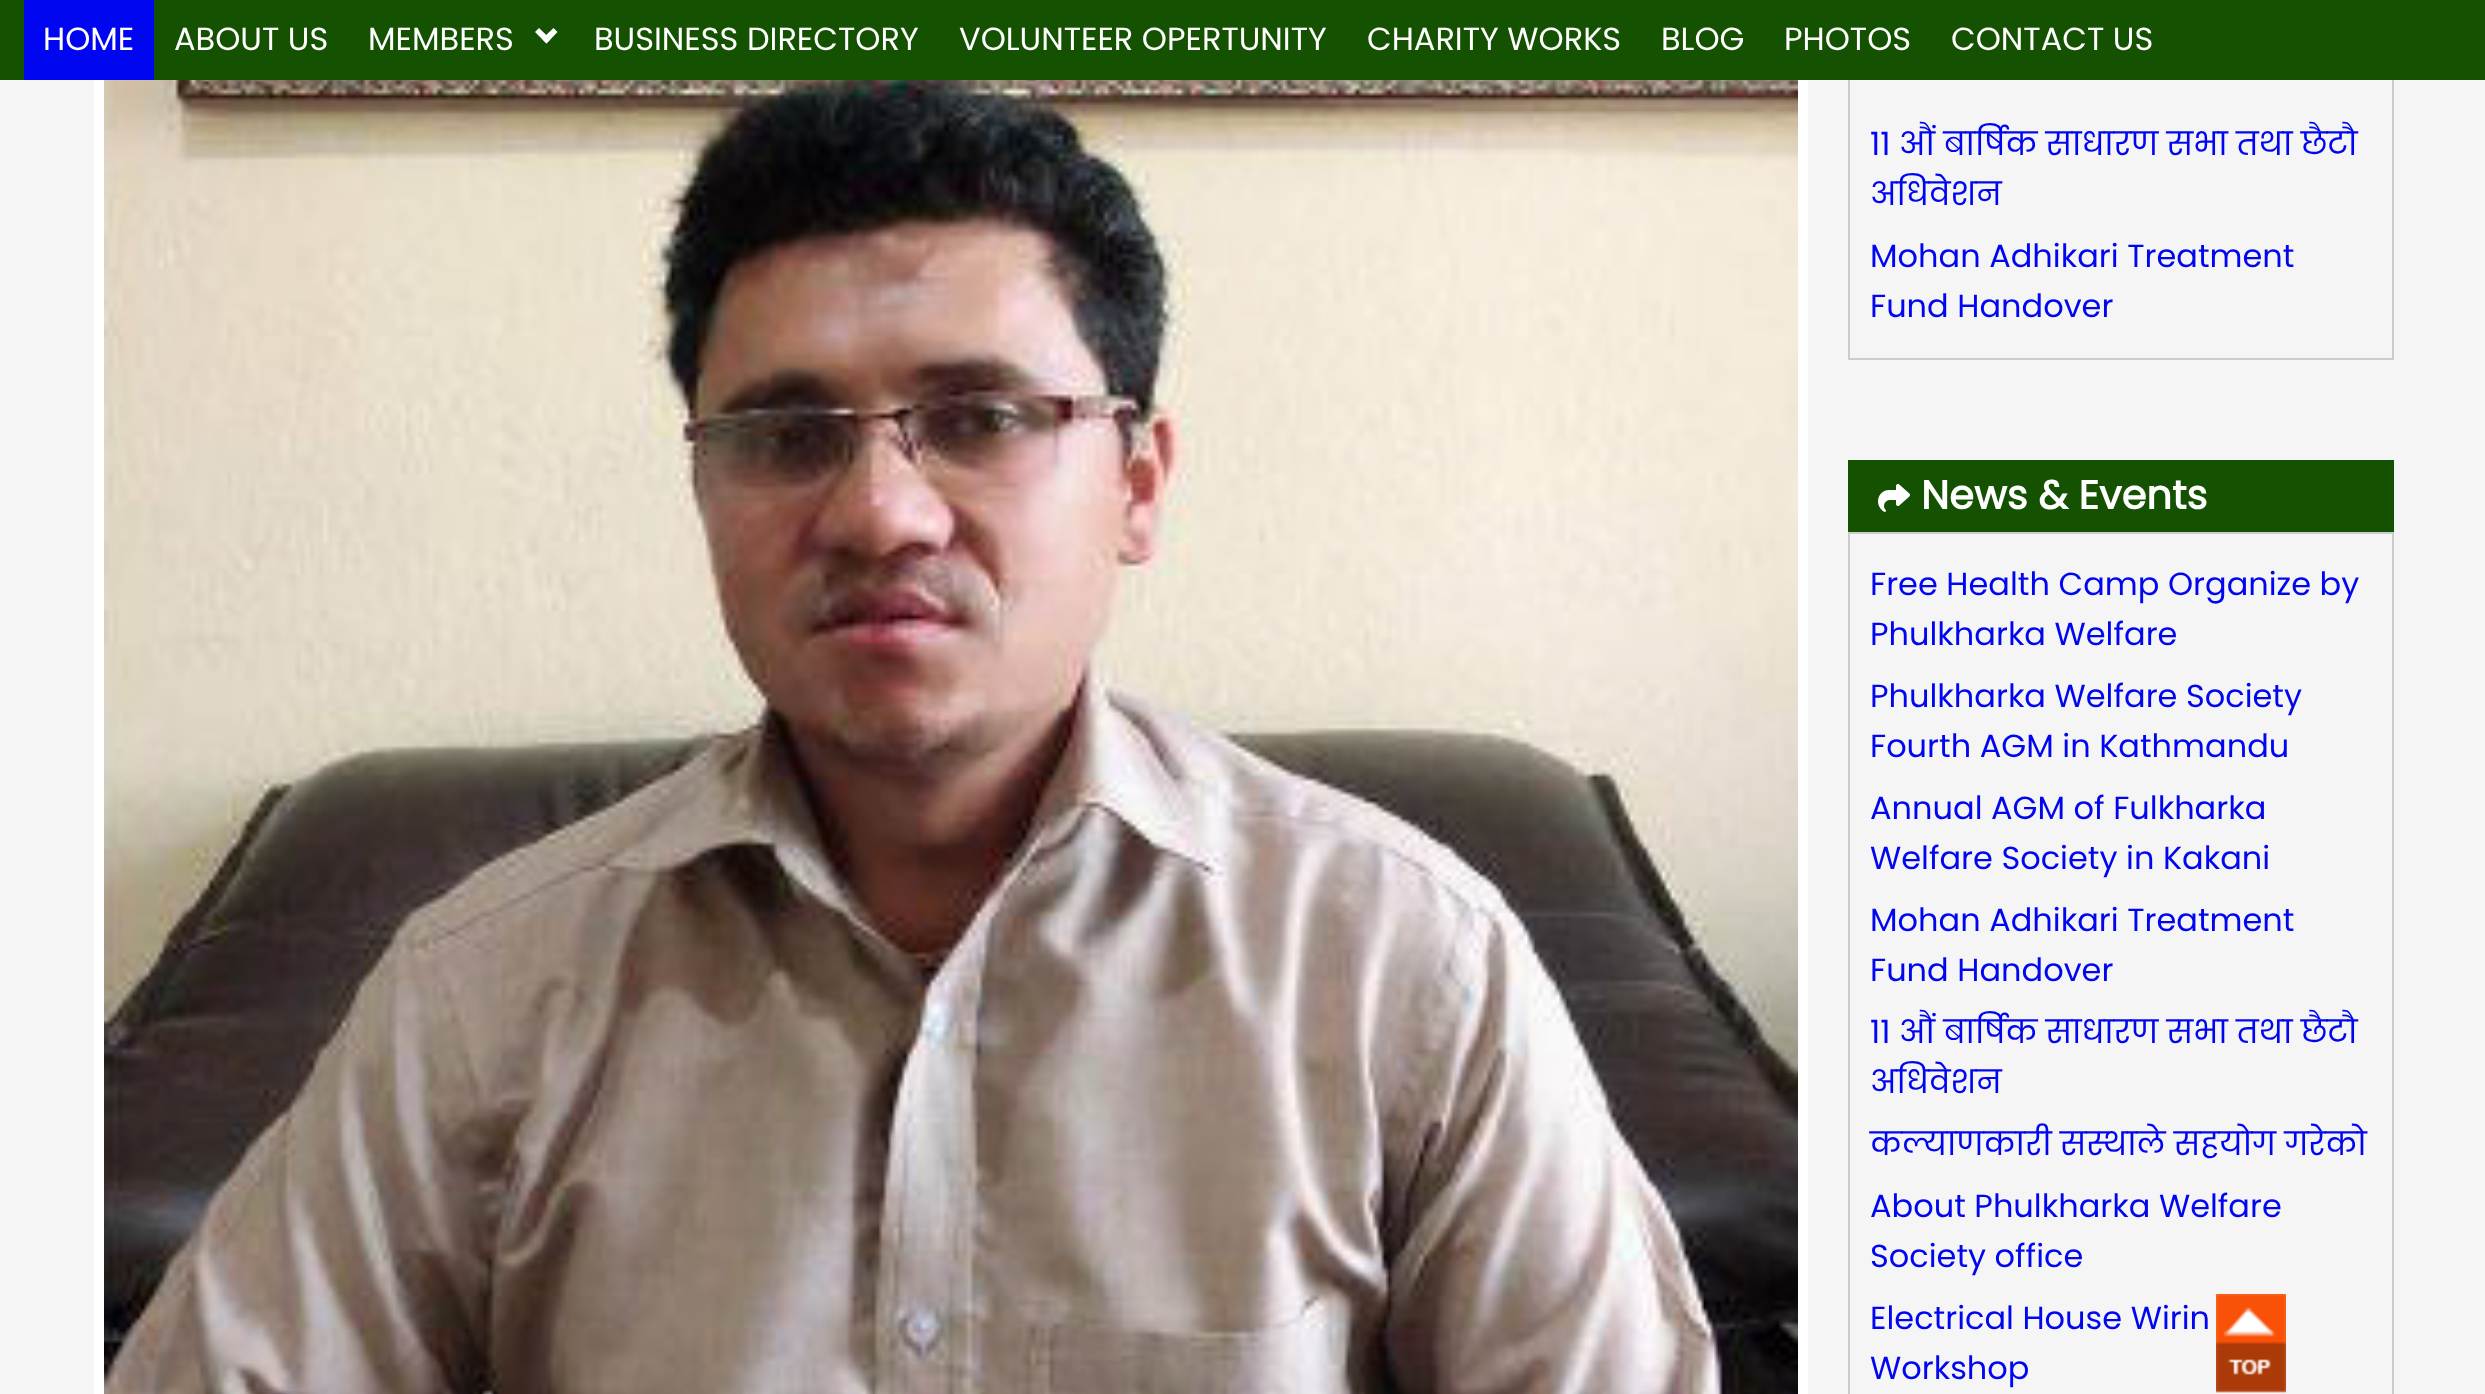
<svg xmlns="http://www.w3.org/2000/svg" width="2485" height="1394">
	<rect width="100%" height="100%" fill="#F5F5F5" />
	<rect x="1849" y="-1" width="544" height="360" fill="none" stroke="#CCCCCC" stroke-width="2" />
	<rect x="0" y="0" width="2485" height="80" fill="#145100" />
	<rect x="24" y="0" width="130" height="80" fill="#0006F0" />
	<g font-family="Poppins" font-size="32" fill="#FFFFFF">
		<text x="43" y="50">HOME</text>
		<text x="174" y="50">ABOUT US</text>
		<text x="368" y="50">MEMBERS</text>
	</g>
	<path d="M553.5 28L557.5 32L546.5 43.5L542 39Z" fill="#FFFFFF" />
	<path d="M539 28L550.5 39L546.5 43.5L535 32Z" fill="#FFFFFF" />
	<g font-family="Poppins" font-size="32" fill="#FFFFFF">
		<text x="594" y="50">BUSINESS DIRECTORY</text>
		<text x="959" y="50">VOLUNTEER OPERTUNITY</text>
		<text x="1367" y="50">CHARITY WORKS</text>
		<text x="1661" y="50">BLOG</text>
		<text x="1784" y="50">PHOTOS</text>
		<text x="1951" y="50">CONTACT US</text>
	</g>
	<rect x="94" y="80" width="1714" height="1314" fill="#FFFFFF" />
	<image x="104" y="80" width="1694" height="1314" href="assets/img1.png" />
	<g font-family="Poppins" font-size="32" fill="#0006F0">
		<text x="1870" y="155">११ औं बार्षिक साधारण सभा तथा छैटौ</text>
		<text x="1870" y="205">अधिवेशन</text>
		<text x="1870" y="267">Mohan Adhikari Treatment</text>
		<text x="1870" y="317">Fund Handover</text>
	</g>
	<rect x="1848" y="460" width="546" height="72" fill="#145100" />
	<image x="1878" y="484" width="32" height="28" href="assets/img2.png" />
	<text x="1921" y="509" font-family="Poppins" font-size="40" font-weight="700" fill="#FFFFFF">News &amp; Events</text>
	<rect x="1849" y="533" width="544" height="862" fill="none" stroke="#CCCCCC" stroke-width="2" />
	<g font-family="Poppins" font-size="32" fill="#0006F0">
		<text x="1870" y="595">Free Health Camp Organize by</text>
		<text x="1870" y="645">Phulkharka Welfare</text>
		<text x="1870" y="707">Phulkharka Welfare Society</text>
		<text x="1870" y="757">Fourth AGM in Kathmandu</text>
		<text x="1870" y="819">Annual AGM of Fulkharka</text>
		<text x="1870" y="869">Welfare Society in Kakani</text>
		<text x="1870" y="931">Mohan Adhikari Treatment</text>
		<text x="1870" y="981">Fund Handover</text>
		<text x="1870" y="1043">११ औं बार्षिक साधारण सभा तथा छैटौ</text>
		<text x="1870" y="1093">अधिवेशन</text>
		<text x="1870" y="1155">कल्याणकारी सस्थाले सहयोग गरेको</text>
		<text x="1870" y="1217">About Phulkharka Welfare</text>
		<text x="1870" y="1267">Society office</text>
		<text x="1870" y="1329">Electrical House Wirin</text>
		<text x="1870" y="1379">Workshop</text>
	</g>
	<image x="2216" y="1294" width="70" height="99" href="assets/img3.png" />
</svg>
